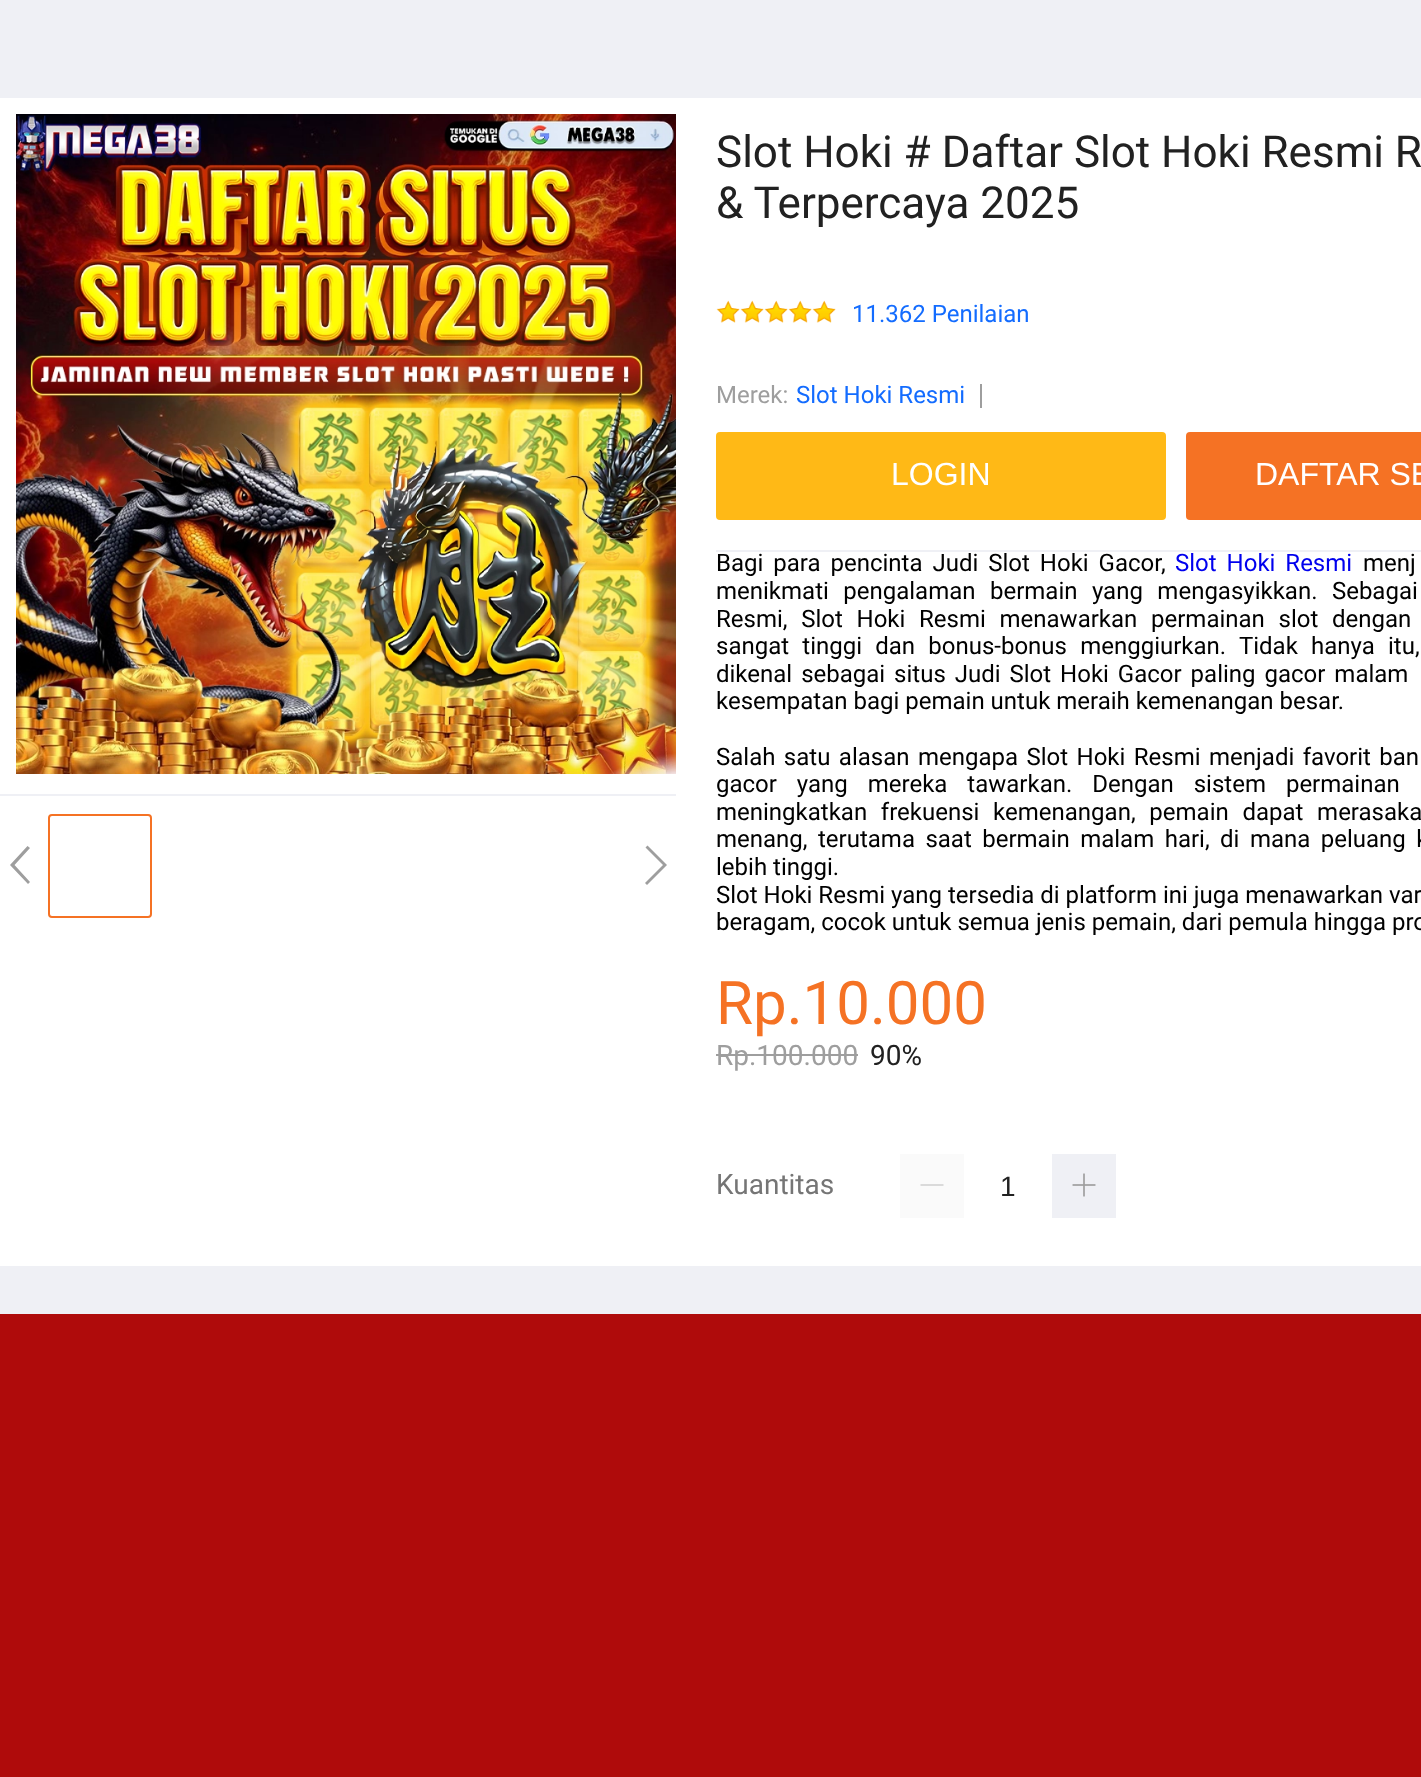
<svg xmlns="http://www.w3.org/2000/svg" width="1421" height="1777">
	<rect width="100%" height="100%" fill="#AF0B0B" />
	<rect x="0" y="0" width="1421" height="98" fill="#EFF0F5" />
	<rect x="0" y="1266" width="1421" height="48" fill="#EFF0F5" />
	<rect x="0" y="98" width="1421" height="1168" fill="#FFFFFF" />
	<rect x="0" y="794" width="676" height="2" fill="#EFF0F5" />
	<image x="16" y="114" width="660" height="660" href="assets/img1.png" />
	<path d="M30 882L14.5 865L30 848L27.5 846L10 865L28 884Z" fill="#9E9E9E" />
	<rect x="49" y="815" width="102" height="102" rx="3" fill="none" stroke="#F57224" stroke-width="2" />
	<path d="M647 885L645 883L663 865L645.5 847.5L647.5 845.5L667 865Z" fill="#9E9E9E" />
	<g font-family="Roboto" font-size="44" fill="#212121">
		<text x="716" y="167">Slot Hoki # Daftar Slot Hoki Resmi R</text>
		<text x="716" y="218">&amp; Terpercaya 2025</text>
	</g>
	<image x="716" y="300" width="24" height="23" href="assets/img2.png" />
	<image x="740" y="300" width="24" height="23" href="assets/img2.png" />
	<image x="764" y="300" width="24" height="23" href="assets/img2.png" />
	<image x="788" y="300" width="24" height="23" href="assets/img2.png" />
	<image x="812" y="300" width="24" height="23" href="assets/img2.png" />
	<text x="852" y="322" font-family="Roboto" font-size="24" fill="#136CFF">11.362 Penilaian</text>
	<rect x="716" y="550" width="705" height="2" fill="#EFF0F5" />
	<text x="716" y="403" font-family="Roboto" font-size="24" fill="#9E9E9E">Merek:</text>
	<text x="796" y="403" font-family="Roboto" font-size="24" fill="#136CFF">Slot Hoki Resmi</text>
	<rect x="980" y="384" width="2" height="24" fill="#9E9E9E" />
	<rect x="716" y="432" width="450" height="88" rx="4" fill="#FFB916" />
	<text x="891" y="485" font-family="Liberation Sans" font-size="32" fill="#FFFFFF">LOGIN</text>
	<rect x="1186" y="432" width="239" height="88" rx="4" fill="#F57224" />
	<text x="1255" y="485" font-family="Liberation Sans" font-size="32" fill="#FFFFFF">DAFTAR SE</text>
	<text x="716" y="571" word-spacing="4" font-family="Roboto" font-size="24" fill="#000000">Bagi para pencinta Judi Slot Hoki Gacor,</text>
	<text x="1175" y="571" word-spacing="4" font-family="Roboto" font-size="24" fill="#0000EE">Slot Hoki Resmi</text>
	<g font-family="Roboto" font-size="24" fill="#000000">
		<text x="1363" y="571" word-spacing="4">menj</text>
		<text x="716" y="599" word-spacing="8.5">menikmati pengalaman bermain yang mengasyikkan. Sebagai</text>
		<text x="716" y="627" word-spacing="7.75">Resmi, Slot Hoki Resmi menawarkan permainan slot dengan</text>
		<text x="716" y="654" word-spacing="7.25">sangat tinggi dan bonus-bonus menggiurkan. Tidak hanya itu,</text>
		<text x="716" y="682" word-spacing="3">dikenal sebagai situs Judi Slot Hoki Gacor paling gacor malam</text>
		<text x="716" y="709">kesempatan bagi pemain untuk meraih kemenangan besar.</text>
		<text x="716" y="765" word-spacing="2.5">Salah satu alasan mengapa Slot Hoki Resmi menjadi favorit ban</text>
		<text x="716" y="792" word-spacing="14">gacor yang mereka tawarkan. Dengan sistem permainan</text>
		<text x="716" y="820" word-spacing="7.75">meningkatkan frekuensi kemenangan, pemain dapat merasaka</text>
		<text x="716" y="847" word-spacing="4.5">menang, terutama saat bermain malam hari, di mana peluang k</text>
		<text x="716" y="875">lebih tinggi.</text>
		<text x="716" y="903">Slot Hoki Resmi yang tersedia di platform ini juga menawarkan var</text>
		<text x="716" y="930">beragam, cocok untuk semua jenis pemain, dari pemula hingga pro</text>
	</g>
	<text x="716" y="1024" font-family="Roboto" font-size="60" fill="#F57224">Rp.10.000</text>
	<text x="716" y="1065" font-family="Roboto" font-size="28" fill="#9E9E9E">Rp.100.000</text>
	<rect x="716" y="1054" width="142" height="2" fill="#9E9E9E" />
	<text x="870" y="1065" font-family="Roboto" font-size="28" fill="#212121">90%</text>
	<text x="716" y="1194" font-family="Roboto" font-size="28" fill="#757575">Kuantitas</text>
	<rect x="900" y="1154" width="64" height="64" fill="#FAFAFA" />
	<path d="M920.5 1184H943.5V1186H920.5ZM932 1173.5H932ZM932 1196.5H932Z" fill="#DADADA" />
	<rect x="1052" y="1154" width="64" height="64" fill="#EFF0F5" />
	<image x="1072" y="1173" width="24" height="24" href="assets/img3.png" />
	<text x="1000" y="1196" font-family="Liberation Sans" font-size="28" fill="#212121">1</text>
</svg>
